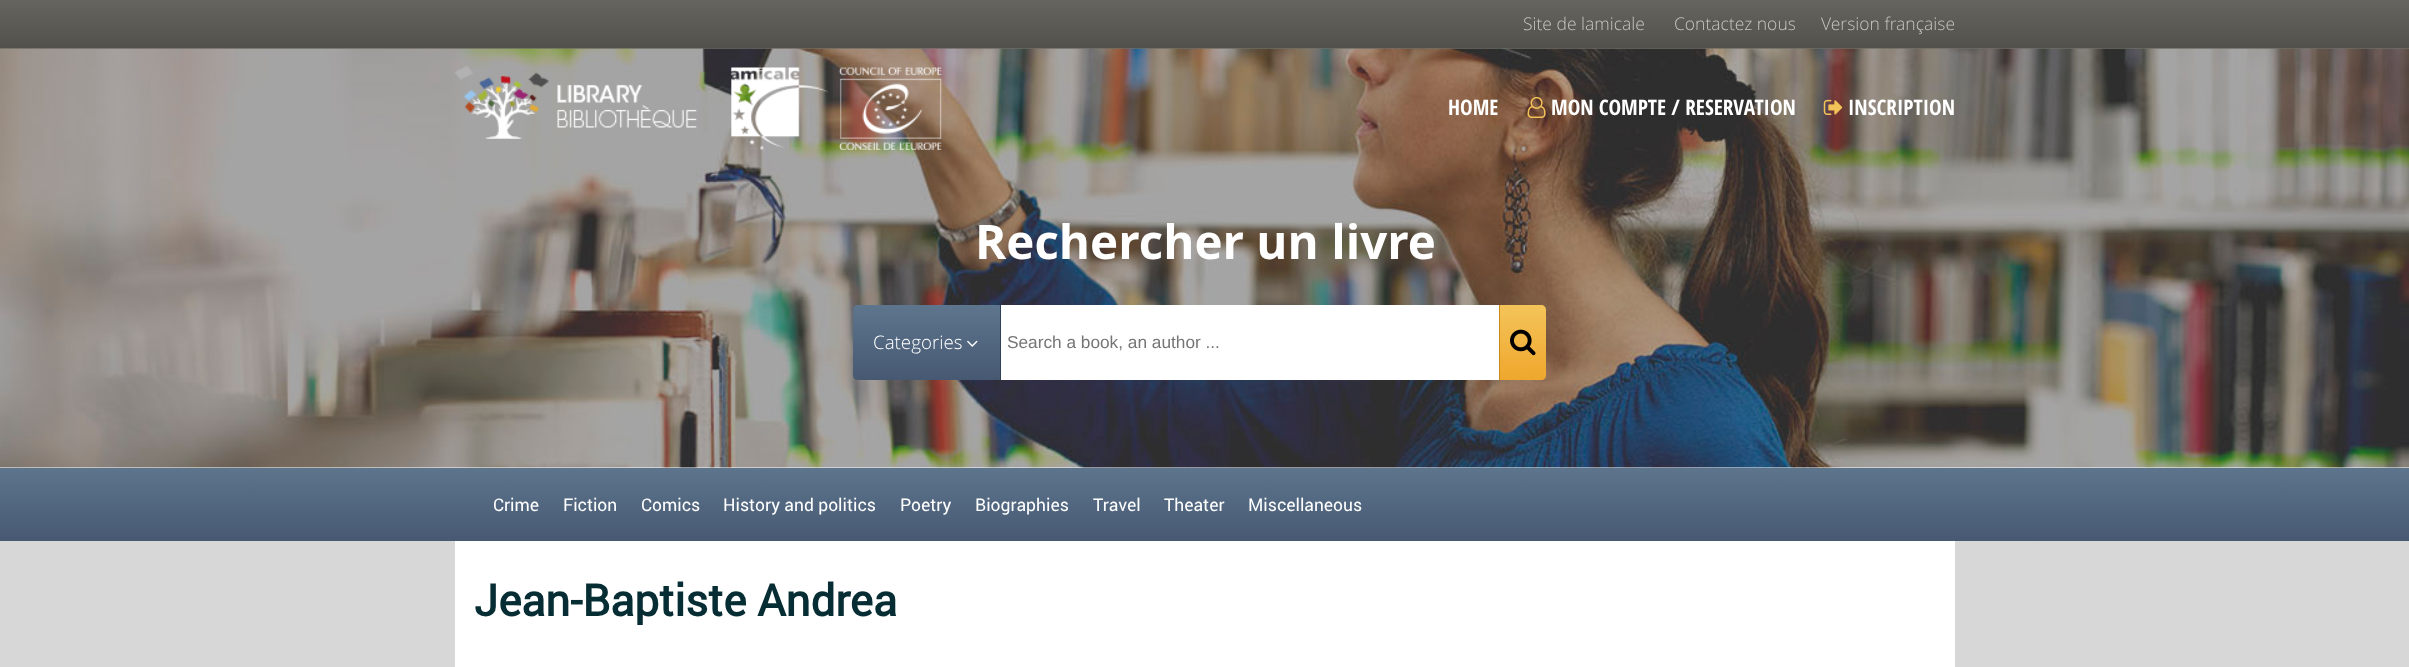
<svg xmlns="http://www.w3.org/2000/svg" width="2409" height="667">
	<defs>
		<linearGradient id="g1" gradientUnits="userSpaceOnUse" x1="1205" y1="0" x2="1205" y2="48"><stop offset="0" stop-color="#65645E" /><stop offset="1" stop-color="#52514C" /></linearGradient>
		<linearGradient id="g2" gradientUnits="userSpaceOnUse" x1="926" y1="305" x2="926" y2="380"><stop offset="0" stop-color="#5D758D" /><stop offset="1" stop-color="#475972" /></linearGradient>
		<linearGradient id="g3" gradientUnits="userSpaceOnUse" x1="1523" y1="305" x2="1523" y2="380"><stop offset="0" stop-color="#F4C459" /><stop offset="1" stop-color="#EFA72D" /></linearGradient>
		<linearGradient id="g4" gradientUnits="userSpaceOnUse" x1="1205" y1="467" x2="1205" y2="541"><stop offset="0" stop-color="#5D758D" /><stop offset="1" stop-color="#475972" /></linearGradient>
	</defs>
	<rect width="100%" height="100%" fill="#FFFFFF" />
	<rect x="0" y="0" width="2409" height="48" fill="url(#g1)" />
	<rect x="0" y="48" width="2409" height="1" fill="#6E6D65" />
	<g font-family="Open Sans" font-size="17.5" font-weight="300" fill="#C7C6C2">
		<text x="1523" y="30">Site de lamicale</text>
		<text x="1674" y="30">Contactez nous</text>
		<text x="1821" y="30">Version française</text>
	</g>
	<image x="0" y="48" width="2409" height="420" href="assets/img1.png" />
	<image x="455" y="66" width="487" height="84" href="assets/img2.png" />
	<text x="1448" y="115" font-family="Open Sans Condensed" font-size="21.25" font-weight="700" fill="#FFFFFF">HOME</text>
	<image x="1527" y="96" width="19" height="22" href="assets/img3.png" />
	<text x="1551" y="115" font-family="Open Sans Condensed" font-size="21.25" font-weight="700" fill="#FFFFFF">MON COMPTE / RESERVATION</text>
	<image x="1823" y="99" width="20" height="16" href="assets/img4.png" />
	<text x="1848" y="115" font-family="Open Sans Condensed" font-size="21.25" font-weight="700" fill="#FFFFFF">INSCRIPTION</text>
	<text x="975" y="259" font-family="Open Sans" font-size="47.5" font-weight="700" fill="#FFFFFF">Rechercher un livre</text>
	<path d="M858 305H1001V380H858C855 380 853 378 853 375V310C853 307 855 305 858 305Z" fill="url(#g2)" />
	<rect x="1000" y="305" width="1" height="75" fill="#324156" />
	<text x="873" y="349" font-family="Open Sans" font-size="18.75" font-weight="300" fill="#FFFFFF">Categories</text>
	<image x="967" y="340" width="11" height="7" href="assets/img5.png" />
	<rect x="1001" y="305" width="498" height="75" fill="#FFFFFF" />
	<text x="1007" y="348" font-family="Liberation Sans" font-size="17.25" fill="#757575">Search a book, an author ...</text>
	<path d="M1499 305H1541C1544 305 1546 307 1546 310V375C1546 378 1544 380 1541 380H1499Z" fill="url(#g3)" />
	<rect x="1499" y="305" width="1" height="75" fill="#C98818" />
	<image x="1510" y="329" width="26" height="27" href="assets/img6.png" />
	<rect x="0" y="468" width="2409" height="73" fill="url(#g4)" />
	<g font-family="Roboto" font-size="17.5" fill="#FFFFFF">
		<text x="493" y="511">Crime</text>
		<text x="563" y="511">Fiction</text>
		<text x="641" y="511">Comics</text>
		<text x="723" y="511">History and politics</text>
		<text x="900" y="511">Poetry</text>
		<text x="975" y="511">Biographies</text>
		<text x="1093" y="511">Travel</text>
		<text x="1164" y="511">Theater</text>
		<text x="1248" y="511">Miscellaneous</text>
	</g>
	<rect x="0" y="541" width="2409" height="126" fill="#D7D7D7" />
	<rect x="455" y="541" width="1500" height="126" fill="#FFFFFF" />
	<text x="474" y="616" font-family="Roboto" font-size="43.75" font-weight="700" fill="#062D33">Jean-Baptiste Andrea</text>
</svg>
